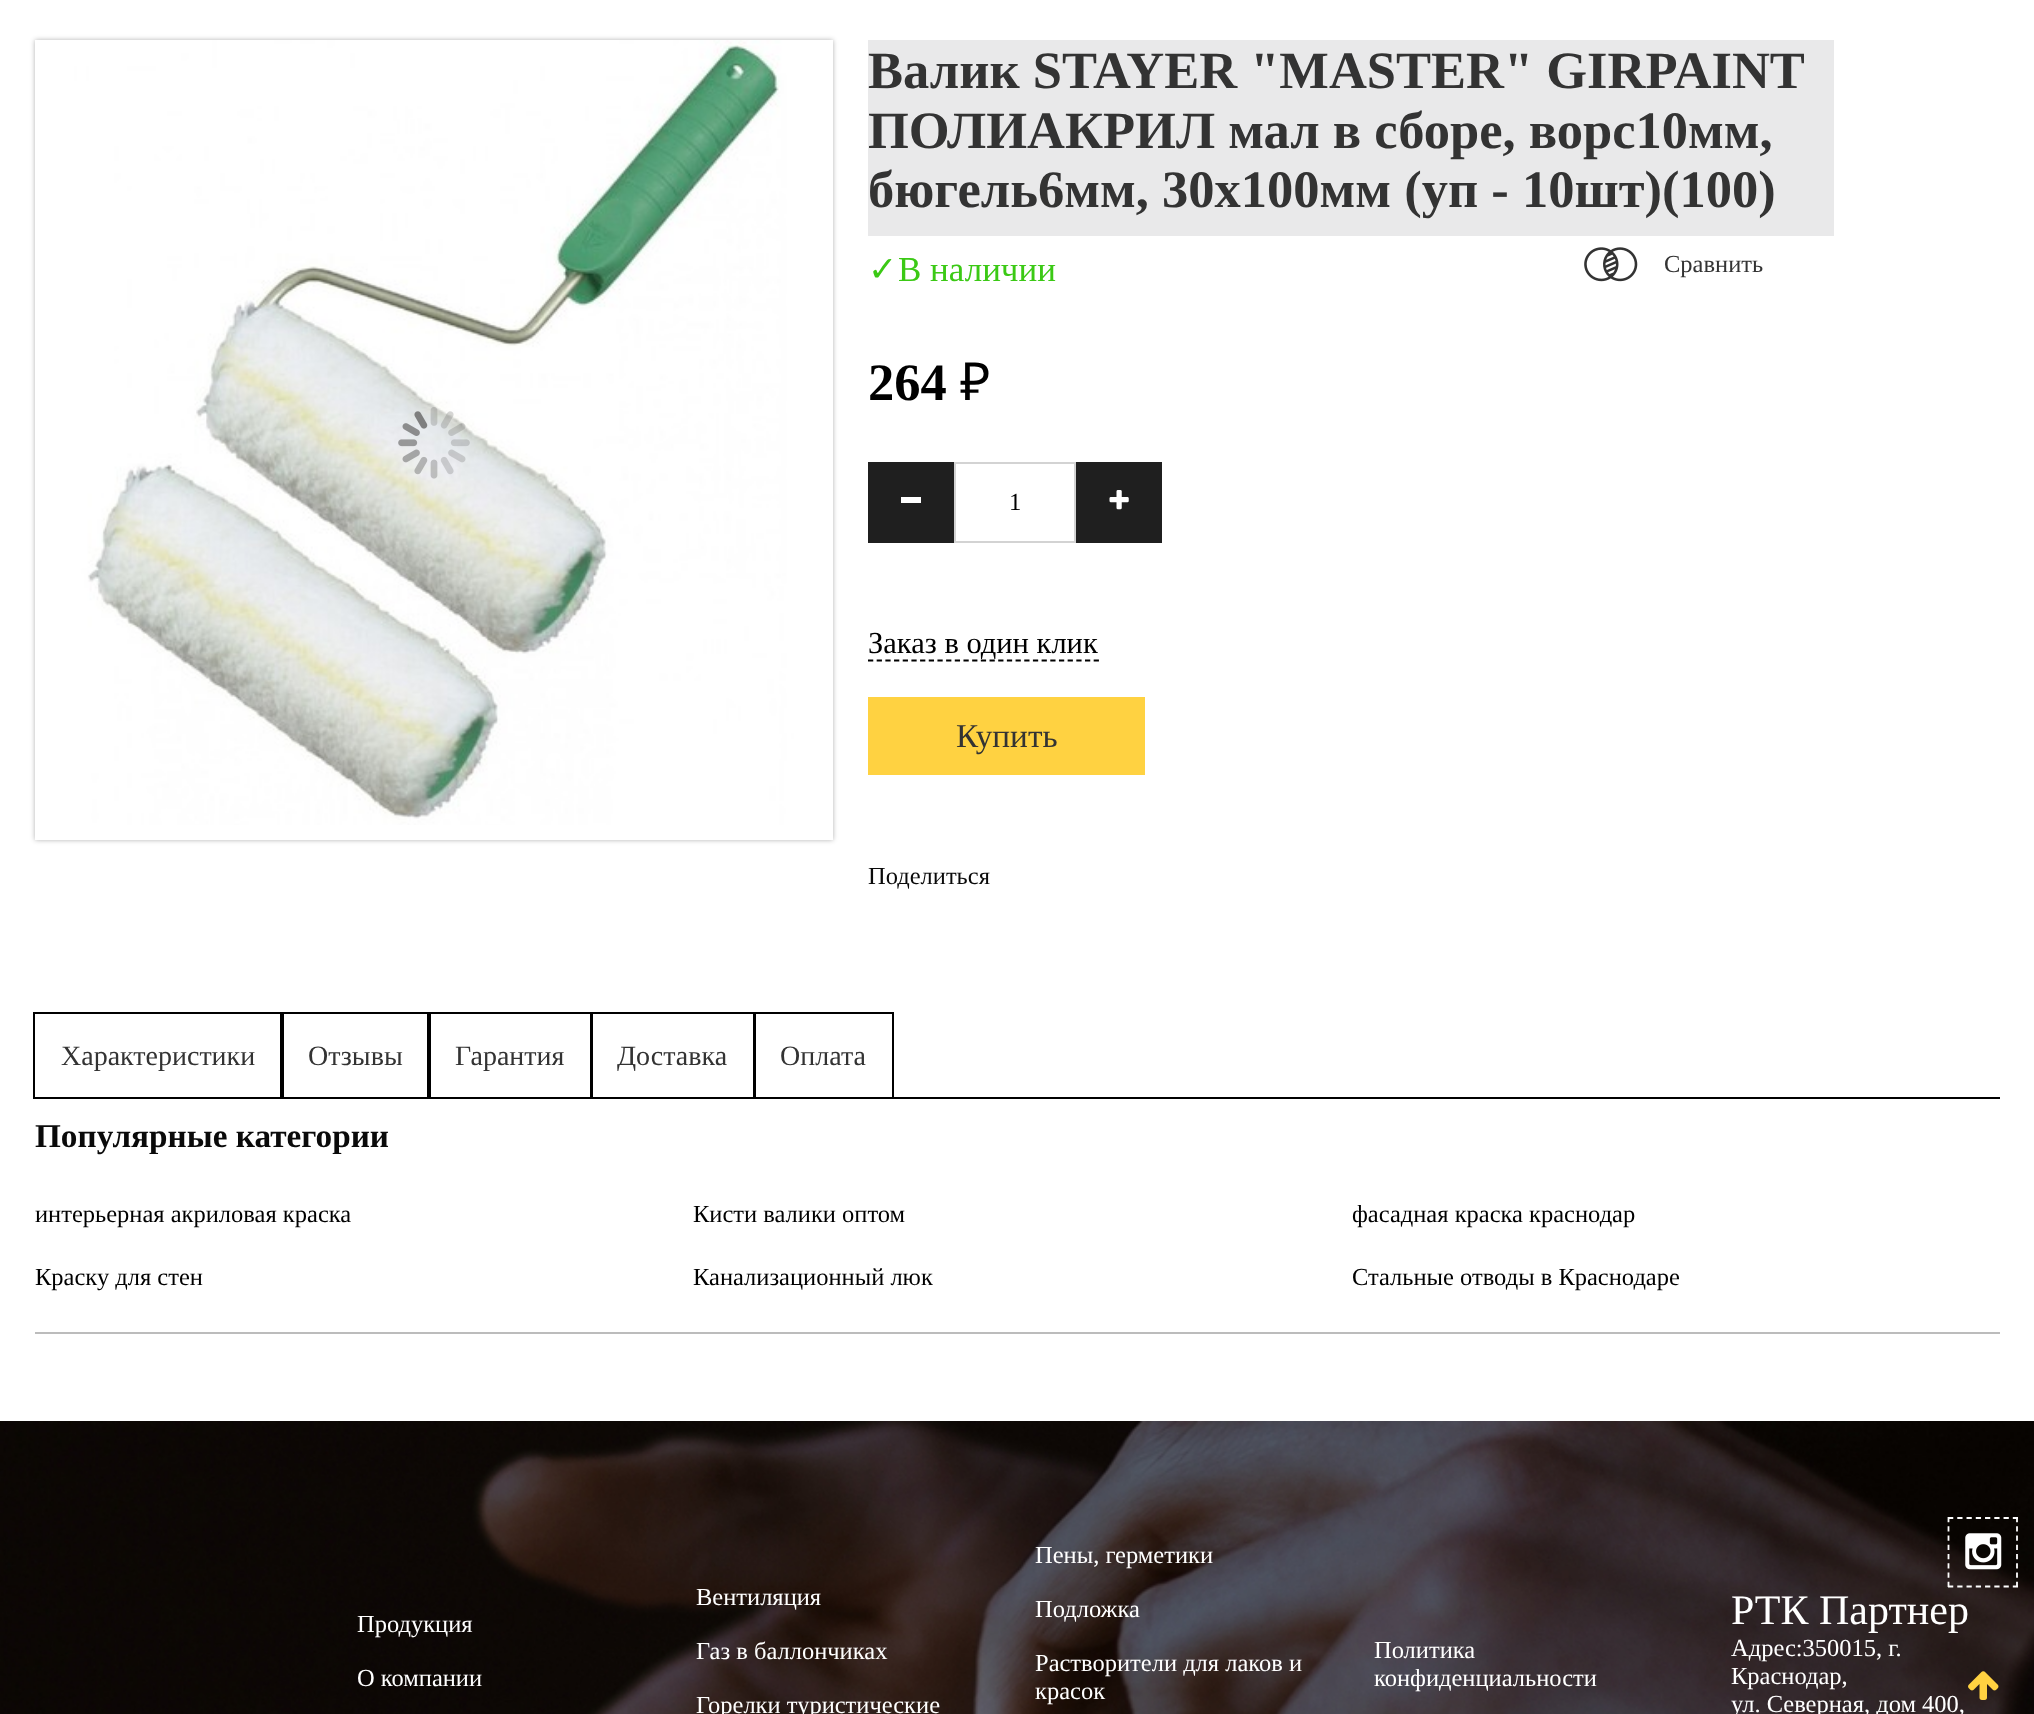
<svg xmlns="http://www.w3.org/2000/svg" width="2034" height="1714">
	<defs>
		<clipPath id="clip1"><path d="M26 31H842V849H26ZM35 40H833V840H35Z" clip-rule="evenodd" /></clipPath>
	</defs>
	<rect width="100%" height="100%" fill="#FFFFFF" />
	<g clip-path="url(#clip1)">
		<rect x="35" y="40" width="798" height="800" fill="#000000" fill-opacity="0.3" filter="blur(2.5px)" />
	</g>
	<image x="35" y="40" width="798" height="785" href="assets/img1.png" />
	<image x="398" y="407" width="72" height="72" href="assets/img2.png" />
	<rect x="868" y="40" width="966" height="196" fill="#E9E9EA" />
	<g font-family="Liberation Serif" font-size="52.5" font-weight="700" fill="#333333">
		<text x="868" y="88">Валик STAYER "MASTER" GIRPAINT</text>
		<text x="868" y="148">ПОЛИАКРИЛ мал в сборе, ворс10мм,</text>
		<text x="868" y="207">бюгель6мм, 30х100мм (уп - 10шт)(100)</text>
	</g>
	<text x="868" y="281" font-family="DejaVu Sans" font-size="35" fill="#3BC915">✓</text>
	<text x="898" y="281" font-family="Liberation Serif" font-size="35" fill="#3BC915">В наличии</text>
	<image x="1584" y="247" width="54" height="35" href="assets/img3.png" />
	<text x="1664" y="272" font-family="Liberation Serif" font-size="24.5" fill="#333333">Сравнить</text>
	<text x="868" y="400" font-family="Liberation Serif" font-size="52.5" font-weight="700" fill="#000000">264</text>
	<text x="960" y="400" font-family="Noto Sans" font-size="52.5" fill="#000000">₽</text>
	<rect x="868" y="462" width="86" height="81" fill="#1F1F1F" />
	<rect x="901" y="497" width="20" height="6" fill="#FFFFFF" />
	<rect x="955" y="463" width="120" height="79" fill="none" stroke="#D3D3D3" stroke-width="2" />
	<text x="1009" y="510" font-family="Liberation Serif" font-size="24.5" fill="#000000">1</text>
	<rect x="1076" y="462" width="86" height="81" fill="#1F1F1F" />
	<image x="1109" y="490" width="20" height="20" href="assets/img4.png" />
	<text x="868" y="653" font-family="Liberation Serif" font-size="30.5" fill="#000000">Заказ в один клик</text>
	<path d="M868 660.5H1099" fill="none" stroke="#000000" stroke-width="1.8" stroke-dasharray="5.25 3.43" />
	<rect x="868" y="697" width="277" height="78" fill="#FFD241" />
	<text x="956" y="747" font-family="Liberation Serif" font-size="33.25" fill="#333333">Купить</text>
	<text x="868" y="884" font-family="Liberation Serif" font-size="24.5" fill="#0A0A0A">Поделиться</text>
	<rect x="894" y="1097" width="1106" height="2" fill="#000000" />
	<rect x="34" y="1013" width="249" height="85" fill="none" stroke="#000000" stroke-width="2" />
	<text x="61" y="1065" font-family="Liberation Serif" font-size="28" fill="#333333">Характеристики</text>
	<rect x="281" y="1013" width="149" height="85" fill="none" stroke="#000000" stroke-width="2" />
	<text x="308" y="1065" font-family="Liberation Serif" font-size="28" fill="#333333">Отзывы</text>
	<rect x="428" y="1013" width="164" height="85" fill="none" stroke="#000000" stroke-width="2" />
	<text x="455" y="1065" font-family="Liberation Serif" font-size="28" fill="#333333">Гарантия</text>
	<rect x="591" y="1013" width="164" height="85" fill="none" stroke="#000000" stroke-width="2" />
	<text x="617" y="1065" font-family="Liberation Serif" font-size="28" fill="#333333">Доставка</text>
	<rect x="754" y="1013" width="139" height="85" fill="none" stroke="#000000" stroke-width="2" />
	<text x="780" y="1065" font-family="Liberation Serif" font-size="28" fill="#333333">Оплата</text>
	<text x="35" y="1147" font-family="Liberation Serif" font-size="33.25" font-weight="700" fill="#0A0A0A">Популярные категории</text>
	<g font-family="Liberation Serif" font-size="24.5" fill="#000000">
		<text x="35" y="1222">интерьерная акриловая краска</text>
		<text x="693" y="1222">Кисти валики оптом</text>
		<text x="1352" y="1222">фасадная краска краснодар</text>
		<text x="35" y="1285">Краску для стен</text>
		<text x="693" y="1285">Канализационный люк</text>
		<text x="1352" y="1285">Стальные отводы в Краснодаре</text>
	</g>
	<rect x="35" y="1332" width="1965" height="2" fill="#BCBCBC" />
	<image x="0" y="1421" width="2034" height="293" href="assets/img5.png" />
	<g font-family="Liberation Serif" font-size="24.5" fill="#FFFFFF">
		<text x="357" y="1632">Продукция</text>
		<text x="357" y="1686">О компании</text>
		<text x="696" y="1605">Вентиляция</text>
		<text x="696" y="1659">Газ в баллончиках</text>
		<text x="696" y="1713">Горелки туристические</text>
		<text x="1035" y="1563">Пены, герметики</text>
		<text x="1035" y="1617">Подложка</text>
		<text x="1035" y="1671">Растворители для лаков и</text>
		<text x="1035" y="1699">красок</text>
		<text x="1374" y="1658">Политика</text>
		<text x="1374" y="1686">конфиденциальности</text>
	</g>
	<path d="M1948 1518H2018" fill="none" stroke="#FFFFFF" stroke-width="1.8" stroke-dasharray="5.25 4.01" />
	<path d="M2017 1517V1587" fill="none" stroke="#FFFFFF" stroke-width="1.8" stroke-dasharray="5.25 4.01" />
	<path d="M1948 1586.5H2018" fill="none" stroke="#FFFFFF" stroke-width="1.8" stroke-dasharray="5.25 4.01" />
	<path d="M1948.5 1517V1587" fill="none" stroke="#FFFFFF" stroke-width="1.8" stroke-dasharray="5.25 4.01" />
	<image x="1965" y="1533" width="37" height="37" href="assets/img6.png" />
	<text x="1731" y="1624" font-family="Liberation Serif" font-size="42" fill="#FFFFFF">РТК Партнер</text>
	<g font-family="Liberation Serif" font-size="24.5" fill="#FFFFFF">
		<text x="1731" y="1656">Адрес:350015, г.</text>
		<text x="1731" y="1684">Краснодар,</text>
		<text x="1731" y="1712">ул. Северная, дом 400,</text>
	</g>
	<image x="1968" y="1671" width="31" height="29" href="assets/img7.png" />
</svg>
